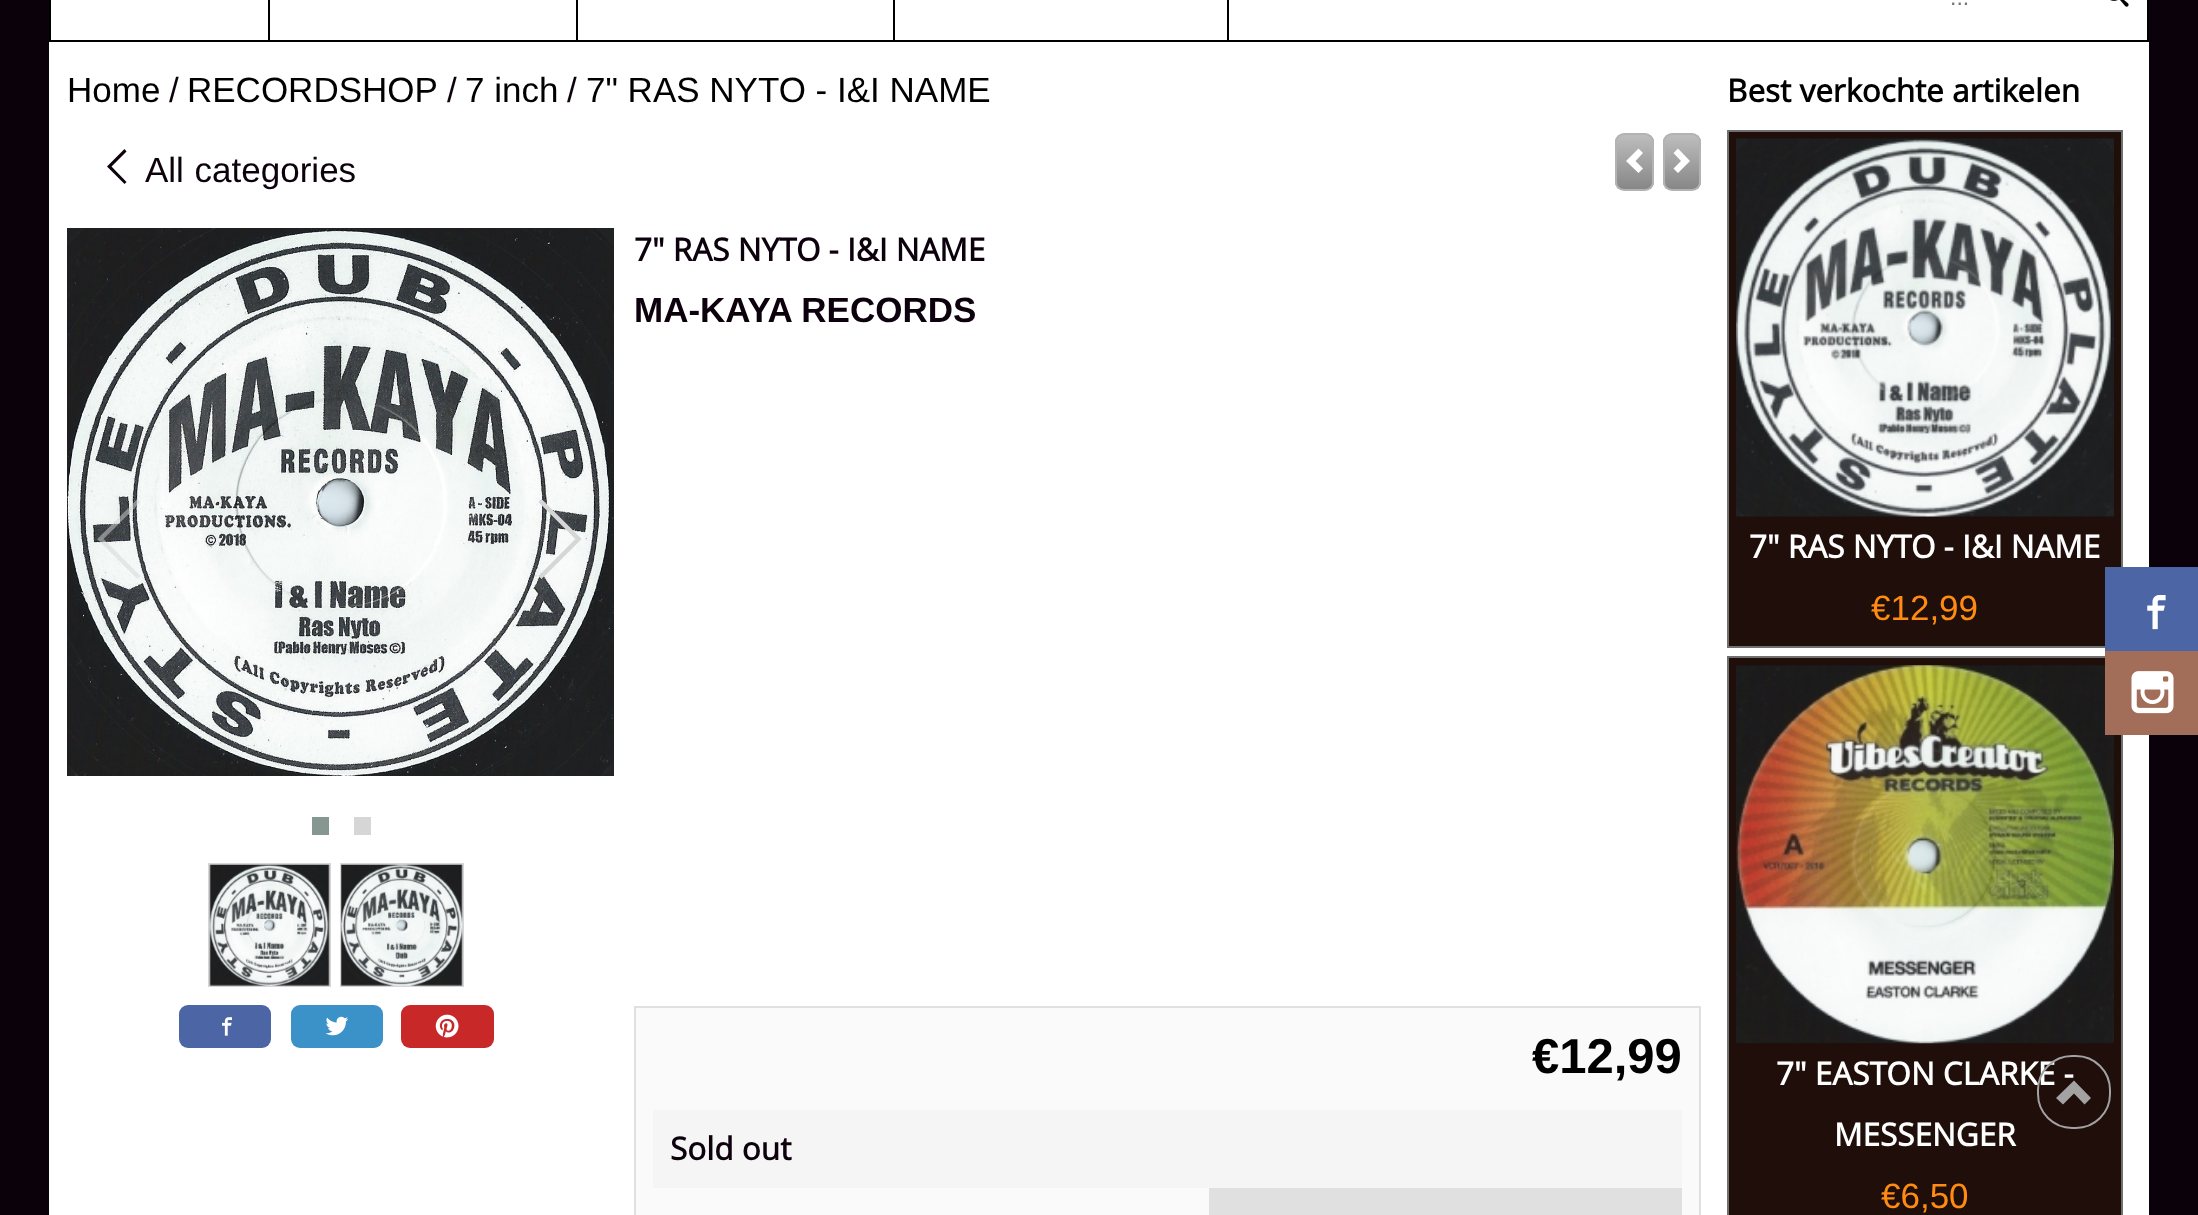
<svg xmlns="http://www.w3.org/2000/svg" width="2198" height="1215">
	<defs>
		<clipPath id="clip1"><rect x="1615" y="133" width="39" height="58" rx="9" /></clipPath>
		<linearGradient id="g1" gradientUnits="userSpaceOnUse" x1="1635" y1="135" x2="1635" y2="189"><stop offset="0" stop-color="#BDBDBD" /><stop offset="1" stop-color="#878787" /></linearGradient>
		<clipPath id="clip2"><rect x="1663" y="133" width="38" height="58" rx="9" /></clipPath>
		<linearGradient id="g2" gradientUnits="userSpaceOnUse" x1="1682" y1="135" x2="1682" y2="189"><stop offset="0" stop-color="#BDBDBD" /><stop offset="1" stop-color="#878787" /></linearGradient>
	</defs>
	<rect width="100%" height="100%" fill="#0A010A" />
	<rect x="50" y="-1" width="2098" height="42" fill="#FFFFFF" stroke="#000000" stroke-width="2" />
	<rect x="268" y="0" width="2" height="40" fill="#000000" />
	<rect x="576" y="0" width="2" height="40" fill="#000000" />
	<rect x="893" y="0" width="2" height="40" fill="#000000" />
	<rect x="1227" y="0" width="2" height="40" fill="#000000" />
	<text x="1950" y="5" font-family="Liberation Sans" font-size="23" fill="#757575">...</text>
	<image x="2110" y="0" width="19" height="7" href="assets/img1.png" />
	<rect x="49" y="42" width="2100" height="1173" fill="#FFFFFF" />
	<text x="67" y="102" font-family="Liberation Sans" font-size="35" fill="#000000">Home</text>
	<text x="169" y="102" font-family="Liberation Sans" font-size="35" fill="#0D010D">/</text>
	<text x="187" y="102" font-family="Liberation Sans" font-size="35" fill="#000000">RECORDSHOP</text>
	<text x="447" y="102" font-family="Liberation Sans" font-size="35" fill="#0D010D">/</text>
	<text x="465" y="102" font-family="Liberation Sans" font-size="35" fill="#000000">7 inch</text>
	<text x="567" y="102" font-family="Liberation Sans" font-size="35" fill="#0D010D">/</text>
	<text x="586" y="102" font-family="Liberation Sans" font-size="35" fill="#000000">7" RAS NYTO - I&amp;I NAME</text>
	<text x="145" y="182" word-spacing="1" font-family="Liberation Sans" font-size="35" fill="#0D010D">All categories</text>
	<path d="M124.5 184L126.5 182L111.5 166.5L126.5 151.5L124.5 149L107 166.5Z" fill="#0D010D" />
	<g clip-path="url(#clip1)">
		<rect x="1615" y="135" width="39" height="54" fill="url(#g1)" />
	</g>
	<rect x="1616" y="134" width="37" height="56" rx="8" fill="none" stroke="#B3B3B3" stroke-width="2" />
	<path d="M1638.5 173L1643 168.5L1635.5 161L1643 153L1638.5 148.5L1626 161Z" fill="#FFFFFF" />
	<g clip-path="url(#clip2)">
		<rect x="1663" y="135" width="38" height="54" fill="url(#g2)" />
	</g>
	<rect x="1664" y="134" width="36" height="56" rx="8" fill="none" stroke="#B3B3B3" stroke-width="2" />
	<path d="M1678 148.5L1673.5 153L1681 161L1673.5 168.5L1678 173L1690 161Z" fill="#FFFFFF" />
	<image x="67" y="228" width="547" height="548" href="assets/img2.png" />
	<path d="M139 500.5L100.5 539L139 577.5" fill="none" stroke="#D6D6D6" stroke-opacity="0.5" stroke-width="4.5" />
	<path d="M540 577.5L578.5 539L540 500.5" fill="none" stroke="#D6D6D6" stroke-width="4.5" />
	<rect x="312" y="817" width="17" height="18" fill="#869791" />
	<rect x="354" y="817" width="17" height="18" fill="#D6D6D6" />
	<rect x="209" y="864" width="121" height="122" fill="none" stroke="#D6D6D6" stroke-width="2" />
	<image x="209" y="864" width="121" height="122" href="assets/img3.png" />
	<rect x="341" y="864" width="122" height="122" fill="none" stroke="#D6D6D6" stroke-width="2" />
	<image x="341" y="864" width="122" height="122" href="assets/img4.png" />
	<rect x="179" y="1005" width="92" height="43" rx="9" fill="#4C65A5" />
	<image x="222" y="1017" width="10" height="19" href="assets/img5.png" />
	<rect x="291" y="1005" width="92" height="43" rx="9" fill="#3B92C8" />
	<image x="325" y="1016" width="24" height="20" href="assets/img6.png" />
	<rect x="401" y="1005" width="93" height="43" rx="9" fill="#C82828" />
	<image x="435" y="1014" width="24" height="24" href="assets/img7.png" />
	<text x="634" y="261" font-family="Open Sans" font-size="31.5" font-weight="700" fill="#0D010D">7" RAS NYTO - I&amp;I NAME</text>
	<text x="634" y="322" font-family="Liberation Sans" font-size="35" font-weight="700" fill="#0D010D">MA-KAYA RECORDS</text>
	<rect x="635" y="1007" width="1065" height="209" fill="#FAFAFA" stroke="#E0E0E0" stroke-width="2" />
	<text x="1532" y="1073" font-family="Liberation Sans" font-size="49" font-weight="700" fill="#000000">€12,99</text>
	<rect x="653" y="1110" width="1029" height="78" fill="#F5F5F5" />
	<text x="670" y="1160" font-family="Open Sans" font-size="31.5" font-weight="700" fill="#0D010D">Sold out</text>
	<rect x="1209" y="1188" width="473" height="27" fill="#E0E0E0" />
	<text x="1727" y="102" font-family="Open Sans" font-size="31.5" font-weight="700" fill="#000000">Best verkochte artikelen</text>
	<rect x="1728" y="131" width="394" height="516" fill="#1F0E09" stroke="#707070" stroke-width="2" />
	<image x="1736" y="138" width="378" height="379" href="assets/img8.png" />
	<text x="1749" y="558" font-family="Open Sans" font-size="31.5" font-weight="700" fill="#FFFFFF">7" RAS NYTO - I&amp;I NAME</text>
	<text x="1871" y="620" font-family="Liberation Sans" font-size="35" fill="#FF8C12">€12,99</text>
	<rect x="1728" y="657" width="394" height="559" fill="#1F0E09" stroke="#707070" stroke-width="2" />
	<image x="1736" y="665" width="378" height="379" href="assets/img9.png" />
	<g font-family="Open Sans" font-size="31.5" font-weight="700" fill="#FFFFFF">
		<text x="1776" y="1085">7" EASTON CLARKE -</text>
		<text x="1834" y="1146">MESSENGER</text>
	</g>
	<text x="1881" y="1208" font-family="Liberation Sans" font-size="35" fill="#FF8C12">€6,50</text>
	<rect x="2105" y="567" width="93" height="84" fill="#4C65A5" />
	<image x="2147" y="595" width="19" height="35" href="assets/img10.png" />
	<rect x="2105" y="651" width="93" height="84" fill="#A26E59" />
	<image x="2131" y="671" width="43" height="43" href="assets/img11.png" />
	<rect x="2038" y="1056" width="72" height="72" rx="34" fill="none" stroke="#A2A2A2" stroke-width="2" />
	<path d="M2056 1098L2063 1104.5L2074 1093.5L2084.5 1104.5L2091 1098L2074 1080.5Z" fill="#A2A2A2" />
</svg>
